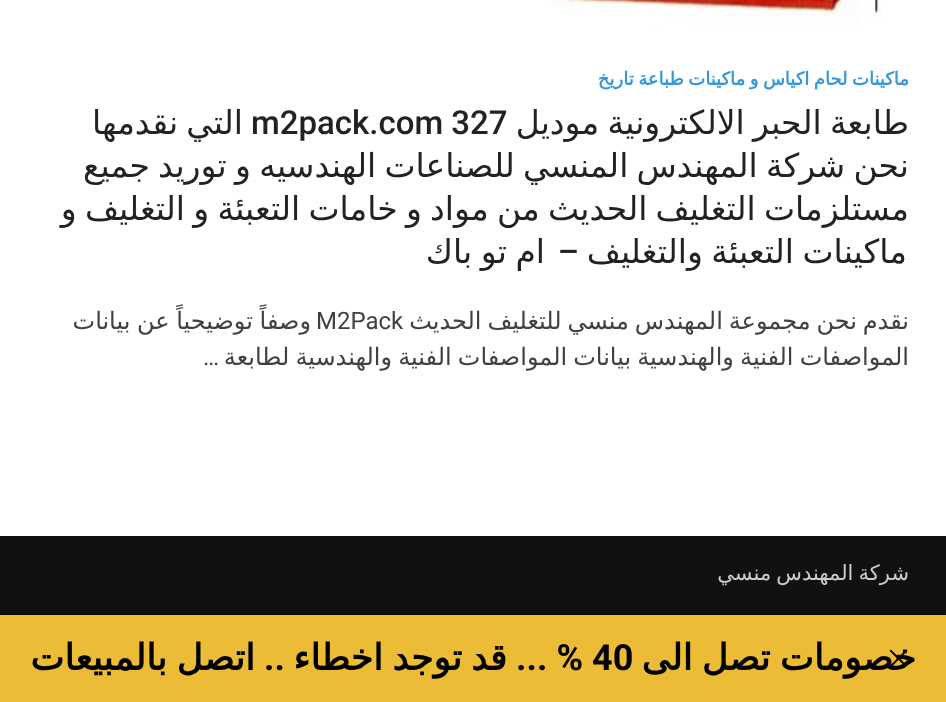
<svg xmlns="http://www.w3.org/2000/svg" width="946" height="702">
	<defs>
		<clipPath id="clip1"><rect x="38" y="69" width="871" height="362" /></clipPath>
	</defs>
	<rect width="100%" height="100%" fill="#FFFFFF" />
	<image x="551" y="0" width="331" height="27" href="assets/img1.png" />
	<g clip-path="url(#clip1)">
		<text x="909" y="85" word-spacing="-1.25" font-family="DejaVu Sans" font-size="18" font-weight="700" direction="rtl" fill="#3498DB">ماكينات لحام اكياس و ماكينات طباعة تاريخ</text>
		<text x="909" y="134" word-spacing="-2.25" font-family="DejaVu Sans" font-size="33" direction="rtl" fill="#222222">طابعة الحبر الالكترونية موديل</text>
	</g>
	<text x="251" y="134" font-family="Roboto" font-size="33" font-weight="500" fill="#222222">m2pack.com 327</text>
	<text x="243" y="134" word-spacing="-2.25" font-family="DejaVu Sans" font-size="33" direction="rtl" fill="#222222">التي نقدمها</text>
	<g clip-path="url(#clip1)">
		<g font-family="DejaVu Sans" font-size="33" direction="rtl" fill="#222222">
			<text x="909" y="177" word-spacing="-2.25">نحن شركة المهندس المنسي للصناعات الهندسيه و توريد جميع</text>
			<text x="909" y="220" word-spacing="-2.25">مستلزمات التغليف الحديث من مواد و خامات التعبئة و التغليف و</text>
		</g>
	</g>
	<text x="907" y="263" word-spacing="-2" font-family="DejaVu Sans" font-size="33" direction="rtl" fill="#222222">ماكينات التعبئة والتغليف</text>
	<text x="579" y="263" font-family="Roboto" font-size="33" font-weight="500" direction="rtl" fill="#222222">–</text>
	<text x="545" y="263" word-spacing="-2" font-family="DejaVu Sans" font-size="33" direction="rtl" fill="#222222">ام تو باك</text>
	<g clip-path="url(#clip1)">
		<text x="909" y="329" word-spacing="-1.75" font-family="DejaVu Sans" font-size="24" direction="rtl" fill="#404040">نقدم نحن مجموعة المهندس منسي للتغليف الحديث</text>
	</g>
	<text x="316" y="329" font-family="Roboto" font-size="24" fill="#404040">M2Pack</text>
	<text x="311" y="329" word-spacing="-1" font-family="DejaVu Sans" font-size="24" direction="rtl" fill="#404040">وصفاً توضيحياً عن بيانات</text>
	<g clip-path="url(#clip1)">
		<text x="909" y="365" word-spacing="-1.5" font-family="DejaVu Sans" font-size="24" direction="rtl" fill="#404040">المواصفات الفنية والهندسية بيانات المواصفات الفنية والهندسية لطابعة</text>
	</g>
	<text x="219" y="365" font-family="Roboto" font-size="24" direction="rtl" fill="#404040">…</text>
	<rect x="0" y="536" width="946" height="79" fill="#111111" />
	<text x="909" y="580" word-spacing="-1.5" font-family="DejaVu Sans" font-size="21" direction="rtl" fill="#CCCCCC">شركة المهندس منسي</text>
	<rect x="3" y="615" width="941" height="81" fill="#000000" fill-opacity="0.5" filter="blur(3px)" />
	<rect x="0" y="615" width="946" height="87" fill="#EDBC36" />
	<text x="916" y="670" word-spacing="-2" font-family="DejaVu Sans" font-size="36" font-weight="700" direction="rtl" fill="#000000">خصومات تصل الى</text>
	<text x="592" y="670" font-family="Roboto" font-size="36" font-weight="700" fill="#000000">40</text>
	<text x="583" y="670" font-family="Roboto" font-size="36" font-weight="700" direction="rtl" fill="#000000">% ...</text>
	<g font-family="DejaVu Sans" font-size="36" font-weight="700" direction="rtl" fill="#000000">
		<text x="507" y="670">قد</text>
		<text x="462" y="670">توجد</text>
		<text x="383" y="670">اخطاء</text>
	</g>
	<text x="285" y="670" font-family="Roboto" font-size="36" font-weight="700" direction="rtl" fill="#000000">..</text>
	<g font-family="DejaVu Sans" font-size="36" font-weight="700" direction="rtl" fill="#000000">
		<text x="255" y="670">اتصل</text>
		<text x="167" y="670">بالمبيعات</text>
	</g>
	<image x="889" y="649" width="19" height="17" href="assets/img2.png" />
</svg>
